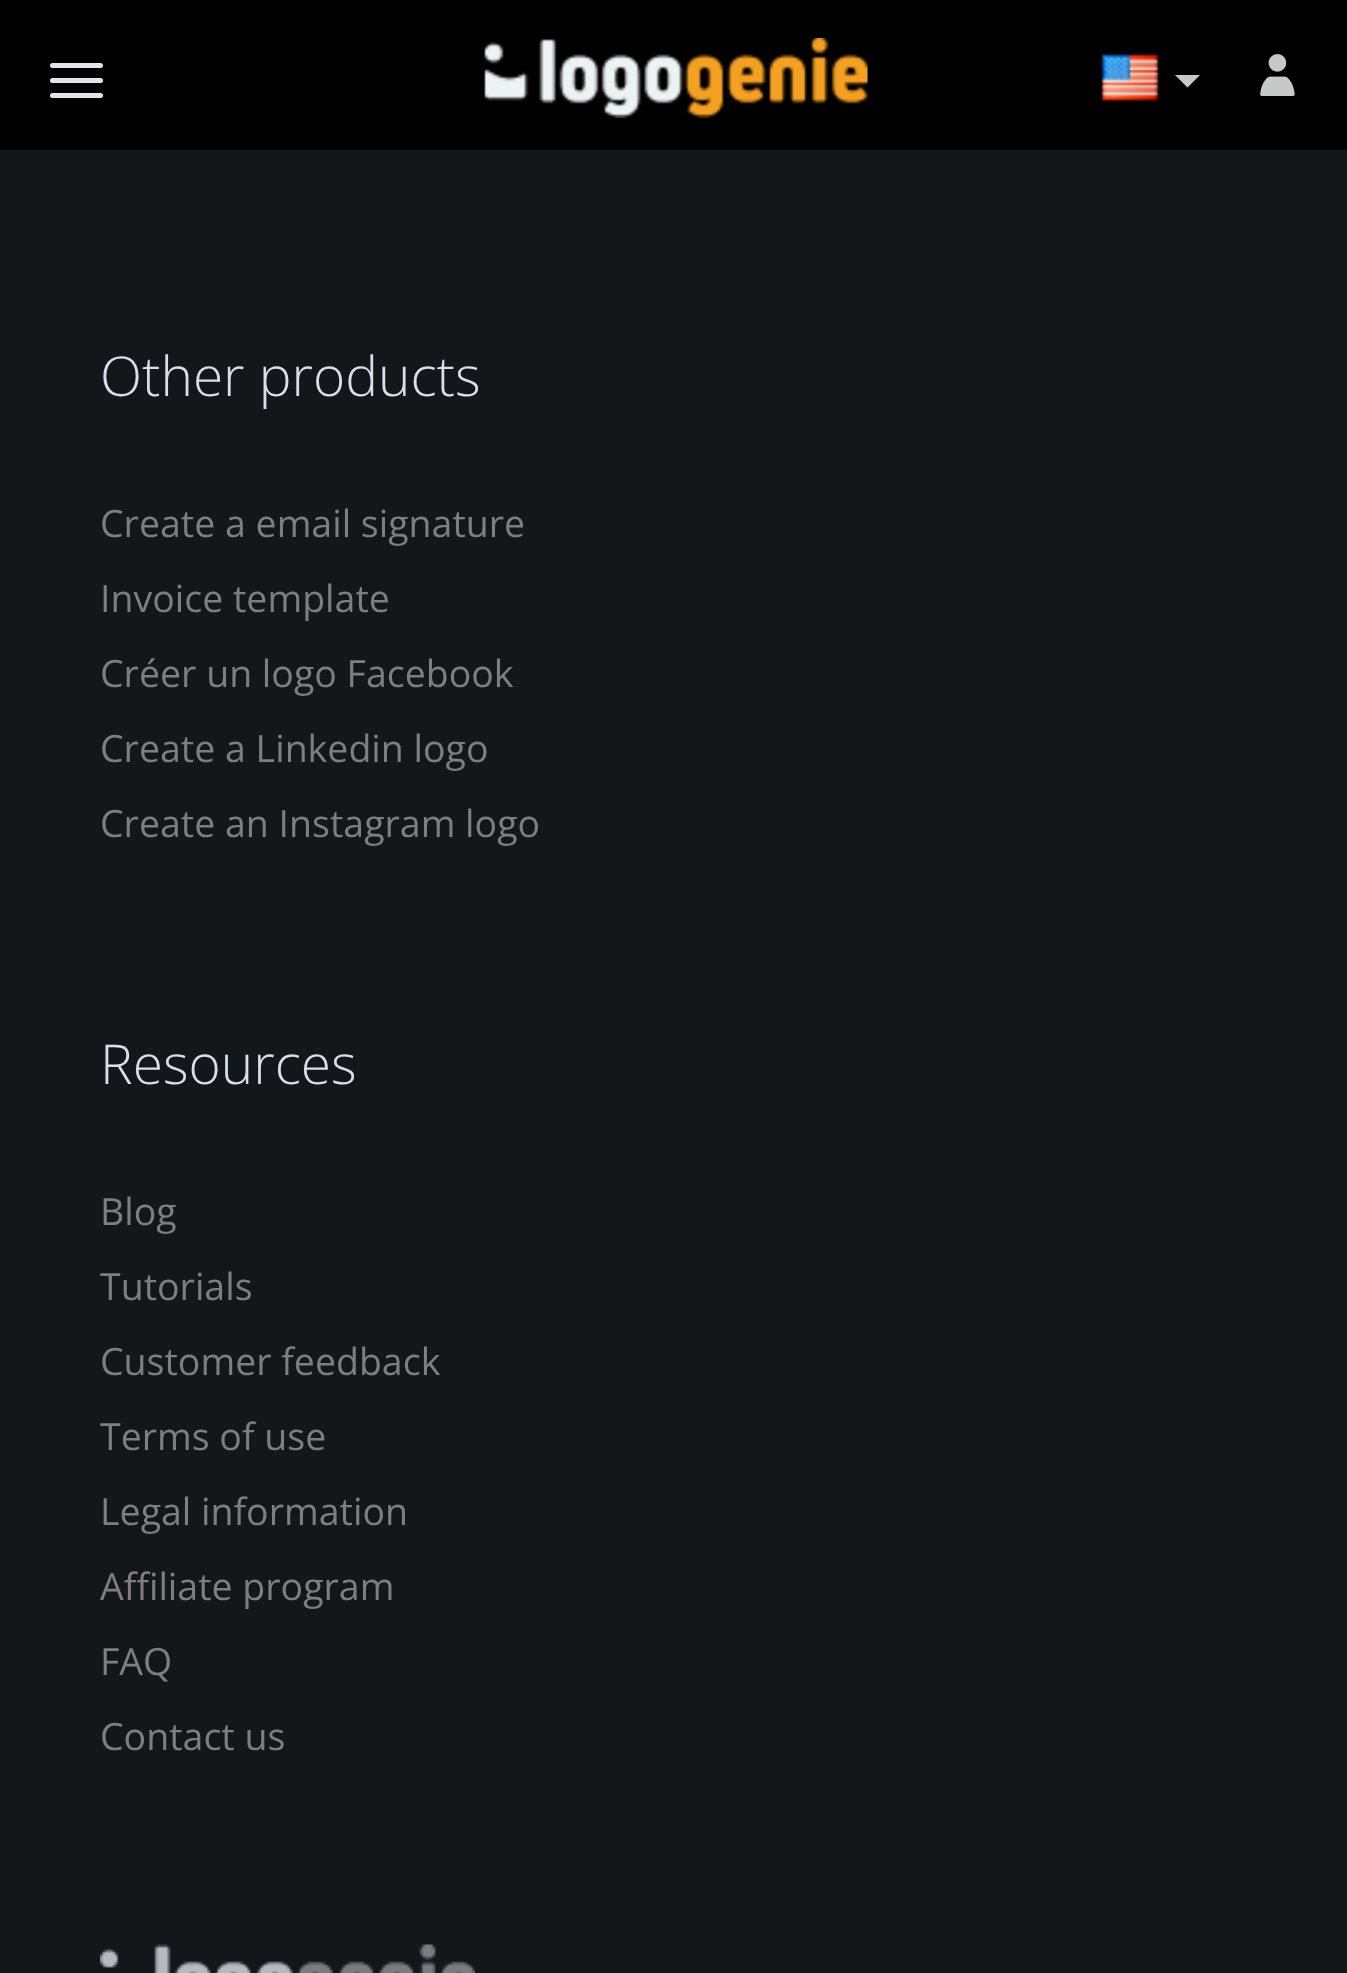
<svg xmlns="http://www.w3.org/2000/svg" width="1347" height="1973">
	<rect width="100%" height="100%" fill="#14171A" />
	<rect x="0" y="0" width="1347" height="150" fill="#000000" />
	<rect x="50" y="63" width="53" height="5" rx="2.5" fill="#E2E4E6" />
	<rect x="50" y="78" width="53" height="5" rx="2.5" fill="#E2E4E6" />
	<rect x="50" y="93" width="53" height="5" rx="2.5" fill="#E2E4E6" />
	<image x="484" y="38" width="384" height="80" href="assets/img1.png" />
	<image x="1101" y="53" width="58" height="49" href="assets/img2.png" />
	<path d="M1175 75H1200L1187.5 87.5Z" fill="#C7C9C9" />
	<image x="1260" y="54" width="35" height="42" href="assets/img3.png" />
	<text x="100" y="396" font-family="Open Sans" font-size="55" font-weight="300" fill="#DADFE6">Other products</text>
	<g font-family="Open Sans" font-size="37.5" fill="#7D7E80">
		<text x="100" y="537">Create a email signature</text>
		<text x="100" y="612">Invoice template</text>
		<text x="100" y="687">Créer un logo Facebook</text>
		<text x="100" y="762">Create a Linkedin logo</text>
		<text x="100" y="837">Create an Instagram logo</text>
	</g>
	<text x="100" y="1084" font-family="Open Sans" font-size="55" font-weight="300" fill="#DADFE6">Resources</text>
	<g font-family="Open Sans" font-size="37.5" fill="#7D7E80">
		<text x="100" y="1225">Blog</text>
		<text x="100" y="1300">Tutorials</text>
		<text x="100" y="1375">Customer feedback</text>
		<text x="100" y="1450">Terms of use</text>
		<text x="100" y="1525">Legal information</text>
		<text x="100" y="1600">Affiliate program</text>
		<text x="100" y="1675">FAQ</text>
		<text x="100" y="1750">Contact us</text>
	</g>
	<image x="100" y="1944" width="375" height="29" href="assets/img4.png" />
</svg>
